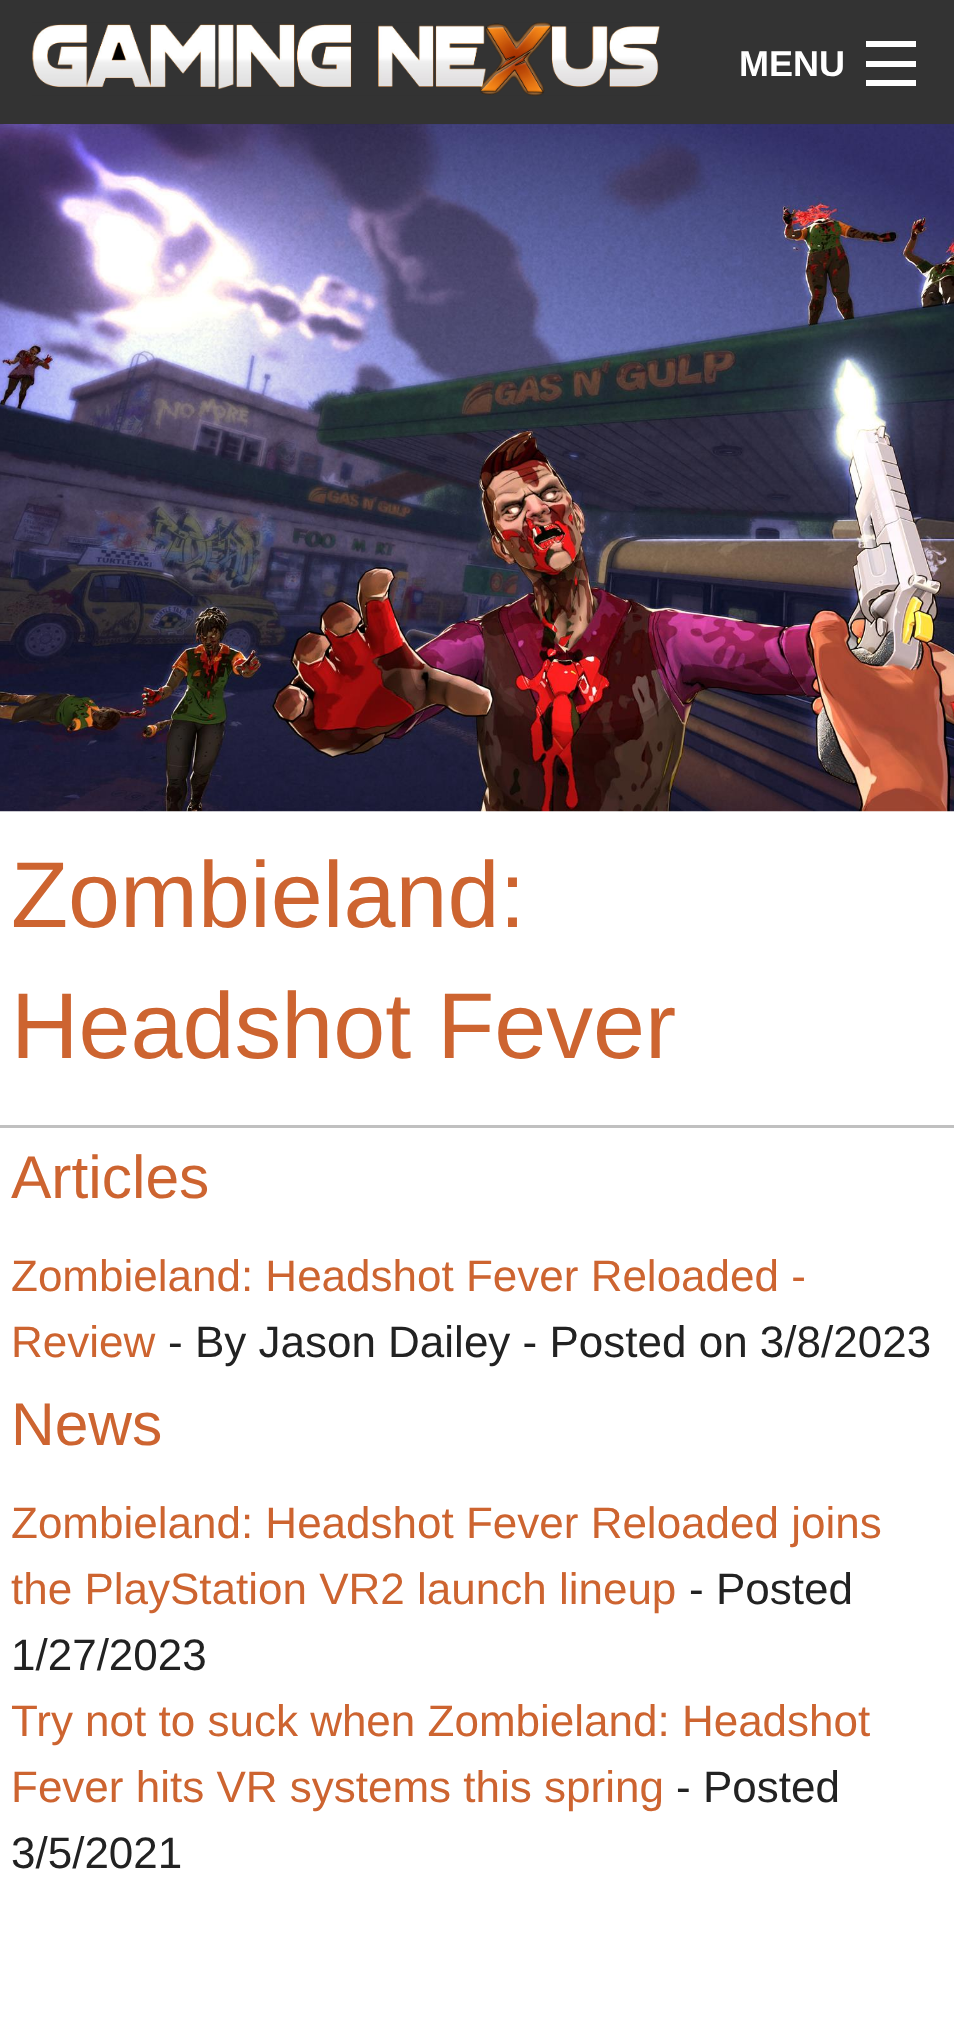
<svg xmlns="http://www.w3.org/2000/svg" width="954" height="2030">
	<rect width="100%" height="100%" fill="#FFFFFF" />
	<rect x="0" y="0" width="954" height="124" fill="#333333" />
	<image x="32" y="22" width="628" height="74" href="assets/img1.png" />
	<text x="739" y="76" font-family="Liberation Sans" font-size="36" font-weight="700" fill="#FFFFFF">MENU</text>
	<rect x="866" y="80" width="50" height="6" fill="#FFFFFF" />
	<rect x="866" y="61" width="50" height="6" fill="#FFFFFF" />
	<rect x="866" y="41" width="50" height="6" fill="#FFFFFF" />
	<image x="0" y="124" width="954" height="688" href="assets/img2.png" />
	<rect x="0" y="1125" width="954" height="3" fill="#C0C0C0" />
	<g font-family="Liberation Sans" font-size="93.5" fill="#CD6430">
		<text x="11" y="927">Zombieland:</text>
		<text x="11" y="1058">Headshot Fever</text>
	</g>
	<text x="11" y="1198" font-family="Liberation Sans" font-size="60.5" fill="#CD6430">Articles</text>
	<g font-family="Liberation Sans" font-size="44" fill="#CD6430">
		<text x="11" y="1291">Zombieland: Headshot Fever Reloaded -</text>
		<text x="11" y="1357">Review</text>
	</g>
	<text x="168" y="1357" font-family="Liberation Sans" font-size="44" fill="#222222">- By Jason Dailey - Posted on 3/8/2023</text>
	<text x="11" y="1445" font-family="Liberation Sans" font-size="60.5" fill="#CD6430">News</text>
	<g font-family="Liberation Sans" font-size="44" fill="#CD6430">
		<text x="11" y="1538">Zombieland: Headshot Fever Reloaded joins</text>
		<text x="11" y="1604">the PlayStation VR2 launch lineup</text>
	</g>
	<g font-family="Liberation Sans" font-size="44" fill="#222222">
		<text x="689" y="1604">- Posted</text>
		<text x="11" y="1670">1/27/2023</text>
	</g>
	<g font-family="Liberation Sans" font-size="44" fill="#CD6430">
		<text x="11" y="1736">Try not to suck when Zombieland: Headshot</text>
		<text x="11" y="1802">Fever hits VR systems this spring</text>
	</g>
	<g font-family="Liberation Sans" font-size="44" fill="#222222">
		<text x="676" y="1802">- Posted</text>
		<text x="11" y="1868">3/5/2021</text>
	</g>
</svg>
